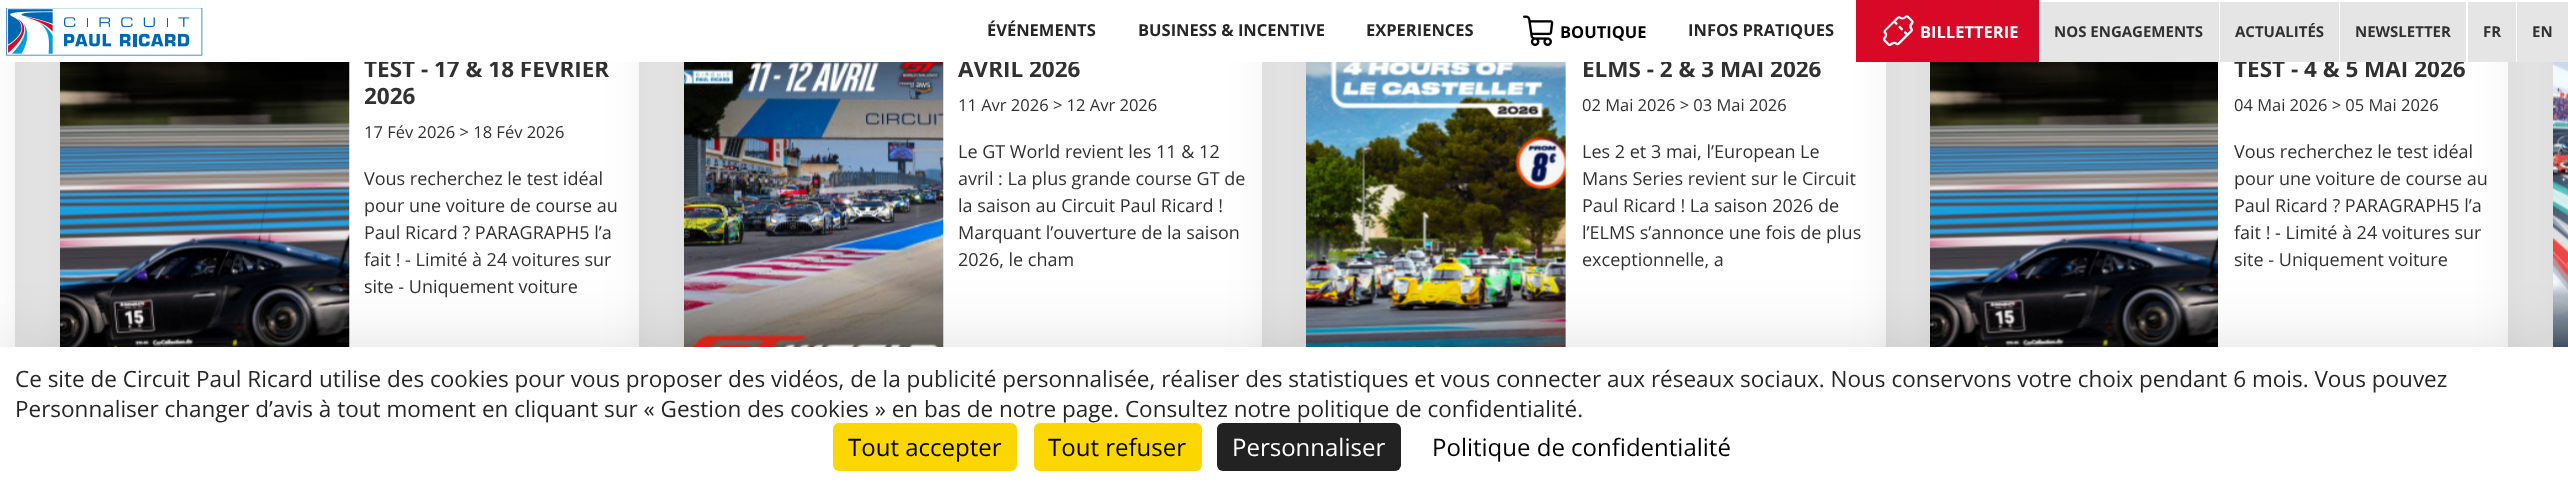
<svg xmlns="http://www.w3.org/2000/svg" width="2568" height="485">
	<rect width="100%" height="100%" fill="#FFFFFF" />
	<rect x="-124" y="-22" width="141" height="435" rx="11" fill="#000000" fill-opacity="0.2" filter="blur(37.5px)" />
	<rect x="0" y="62" width="15" height="285" fill="#FFFFFF" />
	<rect x="59" y="-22" width="582" height="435" rx="11" fill="#000000" fill-opacity="0.2" filter="blur(37.5px)" />
	<rect x="349" y="62" width="290" height="285" fill="#FFFFFF" />
	<text x="364" y="77" font-family="Open Sans" font-size="22.5" font-weight="700" fill="#313131">TEST - 17 &amp; 18 FEVRIER</text>
	<rect x="683" y="-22" width="580" height="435" rx="11" fill="#000000" fill-opacity="0.2" filter="blur(37.5px)" />
	<rect x="943" y="62" width="319" height="285" fill="#FFFFFF" />
	<text x="958" y="77" font-family="Open Sans" font-size="22.5" font-weight="700" fill="#313131">AVRIL 2026</text>
	<rect x="1305" y="-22" width="582" height="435" rx="11" fill="#000000" fill-opacity="0.2" filter="blur(37.5px)" />
	<rect x="1565" y="62" width="321" height="285" fill="#FFFFFF" />
	<text x="1582" y="77" font-family="Open Sans" font-size="22.5" font-weight="700" fill="#313131">ELMS - 2 &amp; 3 MAI 2026</text>
	<rect x="1929" y="-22" width="581" height="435" rx="11" fill="#000000" fill-opacity="0.2" filter="blur(37.5px)" />
	<rect x="2218" y="62" width="290" height="285" fill="#FFFFFF" />
	<text x="2234" y="77" font-family="Open Sans" font-size="22.5" font-weight="700" fill="#313131">TEST - 4 &amp; 5 MAI 2026</text>
	<rect x="2552" y="-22" width="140" height="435" rx="11" fill="#000000" fill-opacity="0.2" filter="blur(37.5px)" />
	<rect x="0" y="0" width="2568" height="62" fill="#FFFFFF" />
	<image x="6" y="8" width="197" height="48" href="assets/img1.png" />
	<g font-family="Open Sans" font-size="16.5" font-weight="700" fill="#262626">
		<text x="987" y="36">ÉVÉNEMENTS</text>
		<text x="1138" y="36">BUSINESS &amp; INCENTIVE</text>
		<text x="1366" y="36">EXPERIENCES</text>
	</g>
	<image x="1523" y="15" width="31" height="31" href="assets/img2.png" />
	<text x="1560" y="38" font-family="Open Sans" font-size="16.5" font-weight="700" fill="#000000">BOUTIQUE</text>
	<text x="1688" y="36" font-family="Open Sans" font-size="16.5" font-weight="700" fill="#262626">INFOS PRATIQUES</text>
	<rect x="1856" y="0" width="183" height="62" fill="#D70926" />
	<image x="1882" y="15" width="32" height="31" href="assets/img3.png" />
	<text x="1920" y="38" font-family="Open Sans" font-size="16.5" font-weight="700" fill="#FFFFFF">BILLETTERIE</text>
	<rect x="2039" y="2" width="180" height="60" fill="#E5E5E5" />
	<text x="2054" y="37" font-family="Open Sans" font-size="15" font-weight="700" fill="#313131">NOS ENGAGEMENTS</text>
	<rect x="2220" y="2" width="119" height="60" fill="#E5E5E5" />
	<text x="2235" y="37" font-family="Open Sans" font-size="15" font-weight="700" fill="#313131">ACTUALITÉS</text>
	<rect x="2340" y="2" width="126" height="60" fill="#E5E5E5" />
	<text x="2355" y="37" font-family="Open Sans" font-size="15" font-weight="700" fill="#313131">NEWSLETTER</text>
	<rect x="2468" y="2" width="48" height="60" fill="#E5E5E5" />
	<text x="2483" y="37" font-family="Open Sans" font-size="15" font-weight="700" fill="#313131">FR</text>
	<rect x="2517" y="2" width="51" height="60" fill="#E5E5E5" />
	<text x="2532" y="37" font-family="Open Sans" font-size="15" font-weight="700" fill="#313131">EN</text>
	<image x="60" y="62" width="290" height="285" href="assets/img4.png" />
	<text x="364" y="104" font-family="Open Sans" font-size="22.5" font-weight="700" fill="#313131">2026</text>
	<text x="364" y="138" font-family="Open Sans" font-size="16.5" fill="#313131">17 Fév 2026 &gt; 18 Fév 2026</text>
	<g font-family="Open Sans" font-size="18" fill="#313131">
		<text x="364" y="185">Vous recherchez le test idéal</text>
		<text x="364" y="212">pour une voiture de course au</text>
		<text x="364" y="239">Paul Ricard ? PARAGRAPH5 l’a</text>
		<text x="364" y="266">fait ! - Limité à 24 voitures sur</text>
		<text x="364" y="293">site - Uniquement voiture</text>
	</g>
	<image x="684" y="62" width="260" height="285" href="assets/img5.png" />
	<text x="958" y="111" font-family="Open Sans" font-size="16.5" fill="#313131">11 Avr 2026 &gt; 12 Avr 2026</text>
	<g font-family="Open Sans" font-size="18" fill="#313131">
		<text x="958" y="158">Le GT World revient les 11 &amp; 12</text>
		<text x="958" y="185">avril : La plus grande course GT de</text>
		<text x="958" y="212">la saison au Circuit Paul Ricard !</text>
		<text x="958" y="239">Marquant l’ouverture de la saison</text>
		<text x="958" y="266">2026, le cham</text>
	</g>
	<image x="1306" y="62" width="260" height="285" href="assets/img6.png" />
	<text x="1582" y="111" font-family="Open Sans" font-size="16.5" fill="#313131">02 Mai 2026 &gt; 03 Mai 2026</text>
	<g font-family="Open Sans" font-size="18" fill="#313131">
		<text x="1582" y="158">Les 2 et 3 mai, l’European Le</text>
		<text x="1582" y="185">Mans Series revient sur le Circuit</text>
		<text x="1582" y="212">Paul Ricard ! La saison 2026 de</text>
		<text x="1582" y="239">l’ELMS s’annonce une fois de plus</text>
		<text x="1582" y="266">exceptionnelle, a</text>
	</g>
	<image x="1930" y="62" width="288" height="285" href="assets/img7.png" />
	<text x="2234" y="111" font-family="Open Sans" font-size="16.5" fill="#313131">04 Mai 2026 &gt; 05 Mai 2026</text>
	<g font-family="Open Sans" font-size="18" fill="#313131">
		<text x="2234" y="158">Vous recherchez le test idéal</text>
		<text x="2234" y="185">pour une voiture de course au</text>
		<text x="2234" y="212">Paul Ricard ? PARAGRAPH5 l’a</text>
		<text x="2234" y="239">fait ! - Limité à 24 voitures sur</text>
		<text x="2234" y="266">site - Uniquement voiture</text>
	</g>
	<image x="2553" y="62" width="15" height="285" href="assets/img8.png" />
	<rect x="0" y="377" width="2568" height="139" fill="#000000" fill-opacity="0.25" filter="blur(45px)" />
	<rect x="0" y="347" width="2568" height="138" fill="#FFFFFF" />
	<g font-family="Open Sans" font-size="22.5" fill="#262626">
		<text x="15" y="387">Ce site de Circuit Paul Ricard utilise des cookies pour vous proposer des vidéos, de la publicité personnalisée, réaliser des statistiques et vous connecter aux réseaux sociaux. Nous conservons votre choix pendant 6 mois. Vous pouvez</text>
		<text x="15" y="417">Personnaliser changer d’avis à tout moment en cliquant sur « Gestion des cookies » en bas de notre page. Consultez notre politique de confidentialité.</text>
	</g>
	<rect x="833" y="423" width="184" height="48" rx="6" fill="#FBD600" />
	<text x="848" y="456" font-family="Open Sans" font-size="24" fill="#000000">Tout accepter</text>
	<rect x="1034" y="423" width="168" height="48" rx="6" fill="#FBD600" />
	<text x="1048" y="456" font-family="Open Sans" font-size="24" fill="#000000">Tout refuser</text>
	<rect x="1217" y="423" width="184" height="48" rx="6" fill="#222222" />
	<text x="1232" y="456" font-family="Open Sans" font-size="24" fill="#FFFFFF">Personnaliser</text>
	<text x="1432" y="456" font-family="Open Sans" font-size="24" fill="#000000">Politique de confidentialité</text>
</svg>
